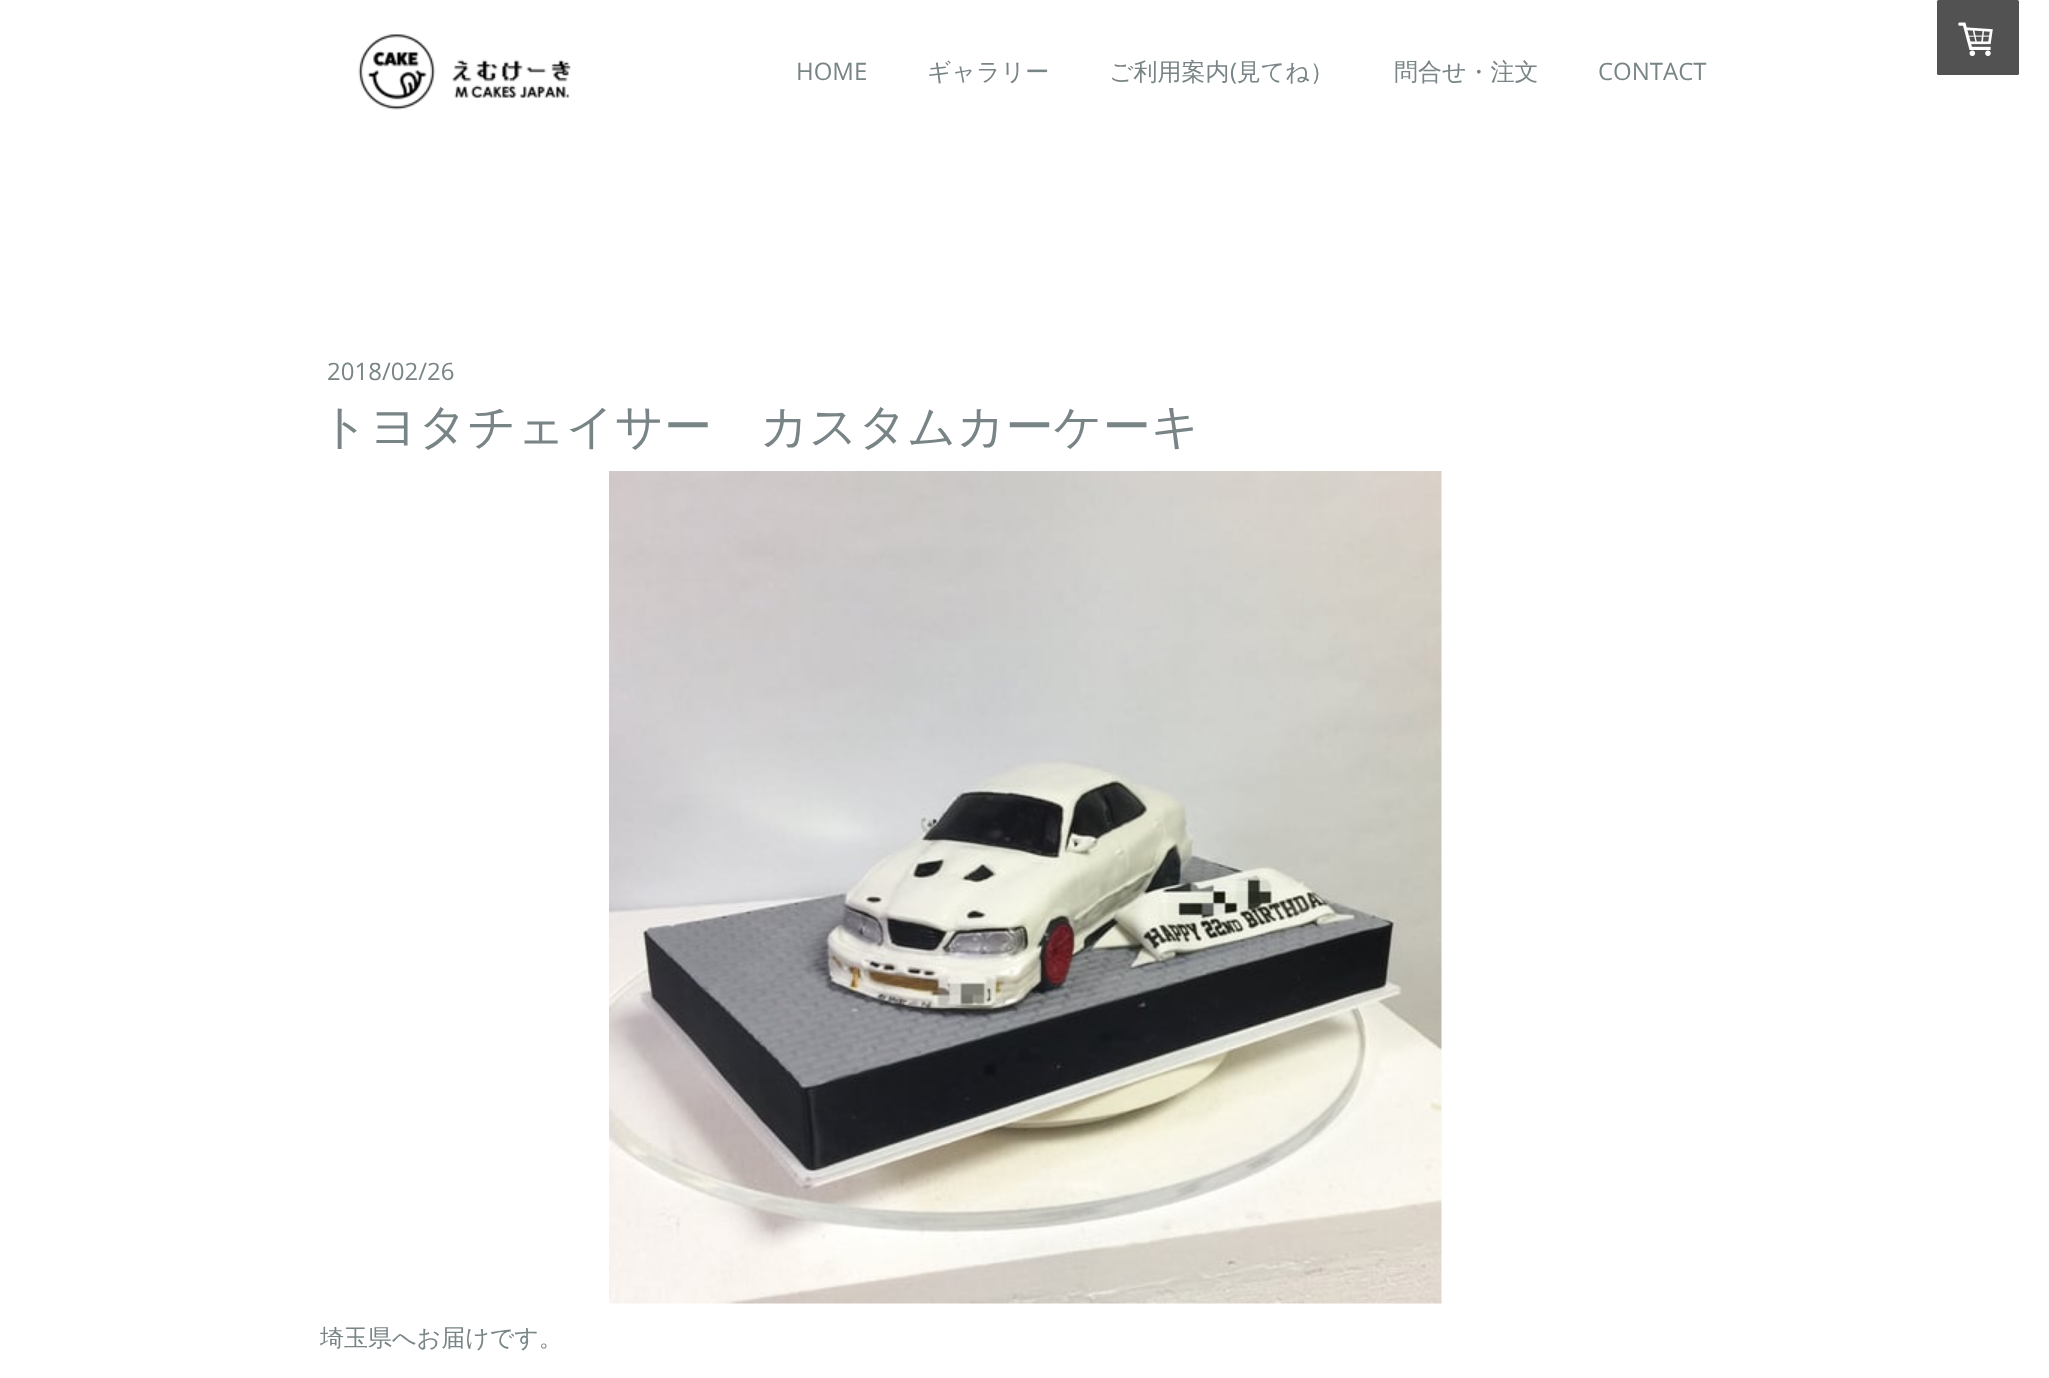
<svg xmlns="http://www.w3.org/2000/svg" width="2049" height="1378">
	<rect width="100%" height="100%" fill="#FFFFFF" />
	<image x="358" y="34" width="213" height="76" href="assets/img1.png" />
	<text x="796" y="80" font-family="Open Sans" font-size="24" fill="#798486">HOME</text>
	<g font-family="WenQuanYi Zen Hei" font-size="24" font-weight="500" fill="#798486">
		<text x="927" y="80">ギャラリー</text>
		<text x="1109" y="80">ご利用案内 見てね）</text>
	</g>
	<text x="1230" y="80" font-family="Open Sans" font-size="24" fill="#798486">(</text>
	<text x="1394" y="80" font-family="WenQuanYi Zen Hei" font-size="24" font-weight="500" fill="#798486">問合せ・注文</text>
	<text x="1598" y="80" font-family="Open Sans" font-size="24" fill="#798486">CONTACT</text>
	<rect x="1937" y="0" width="82" height="75" rx="1.5" fill="#525252" />
	<image x="1958" y="22" width="35" height="34" href="assets/img2.png" />
	<text x="327" y="380" font-family="Open Sans" font-size="24" fill="#798486">2018/02/26</text>
	<text x="320" y="443" font-family="WenQuanYi Zen Hei" font-size="48" font-weight="500" fill="#798486">トヨタチェイサー　カスタムカーケーキ</text>
	<image x="609" y="471" width="833" height="833" href="assets/img3.png" />
	<text x="320" y="1346" font-family="WenQuanYi Zen Hei" font-size="24" font-weight="500" fill="#798486">埼玉県へお届けです。</text>
</svg>
